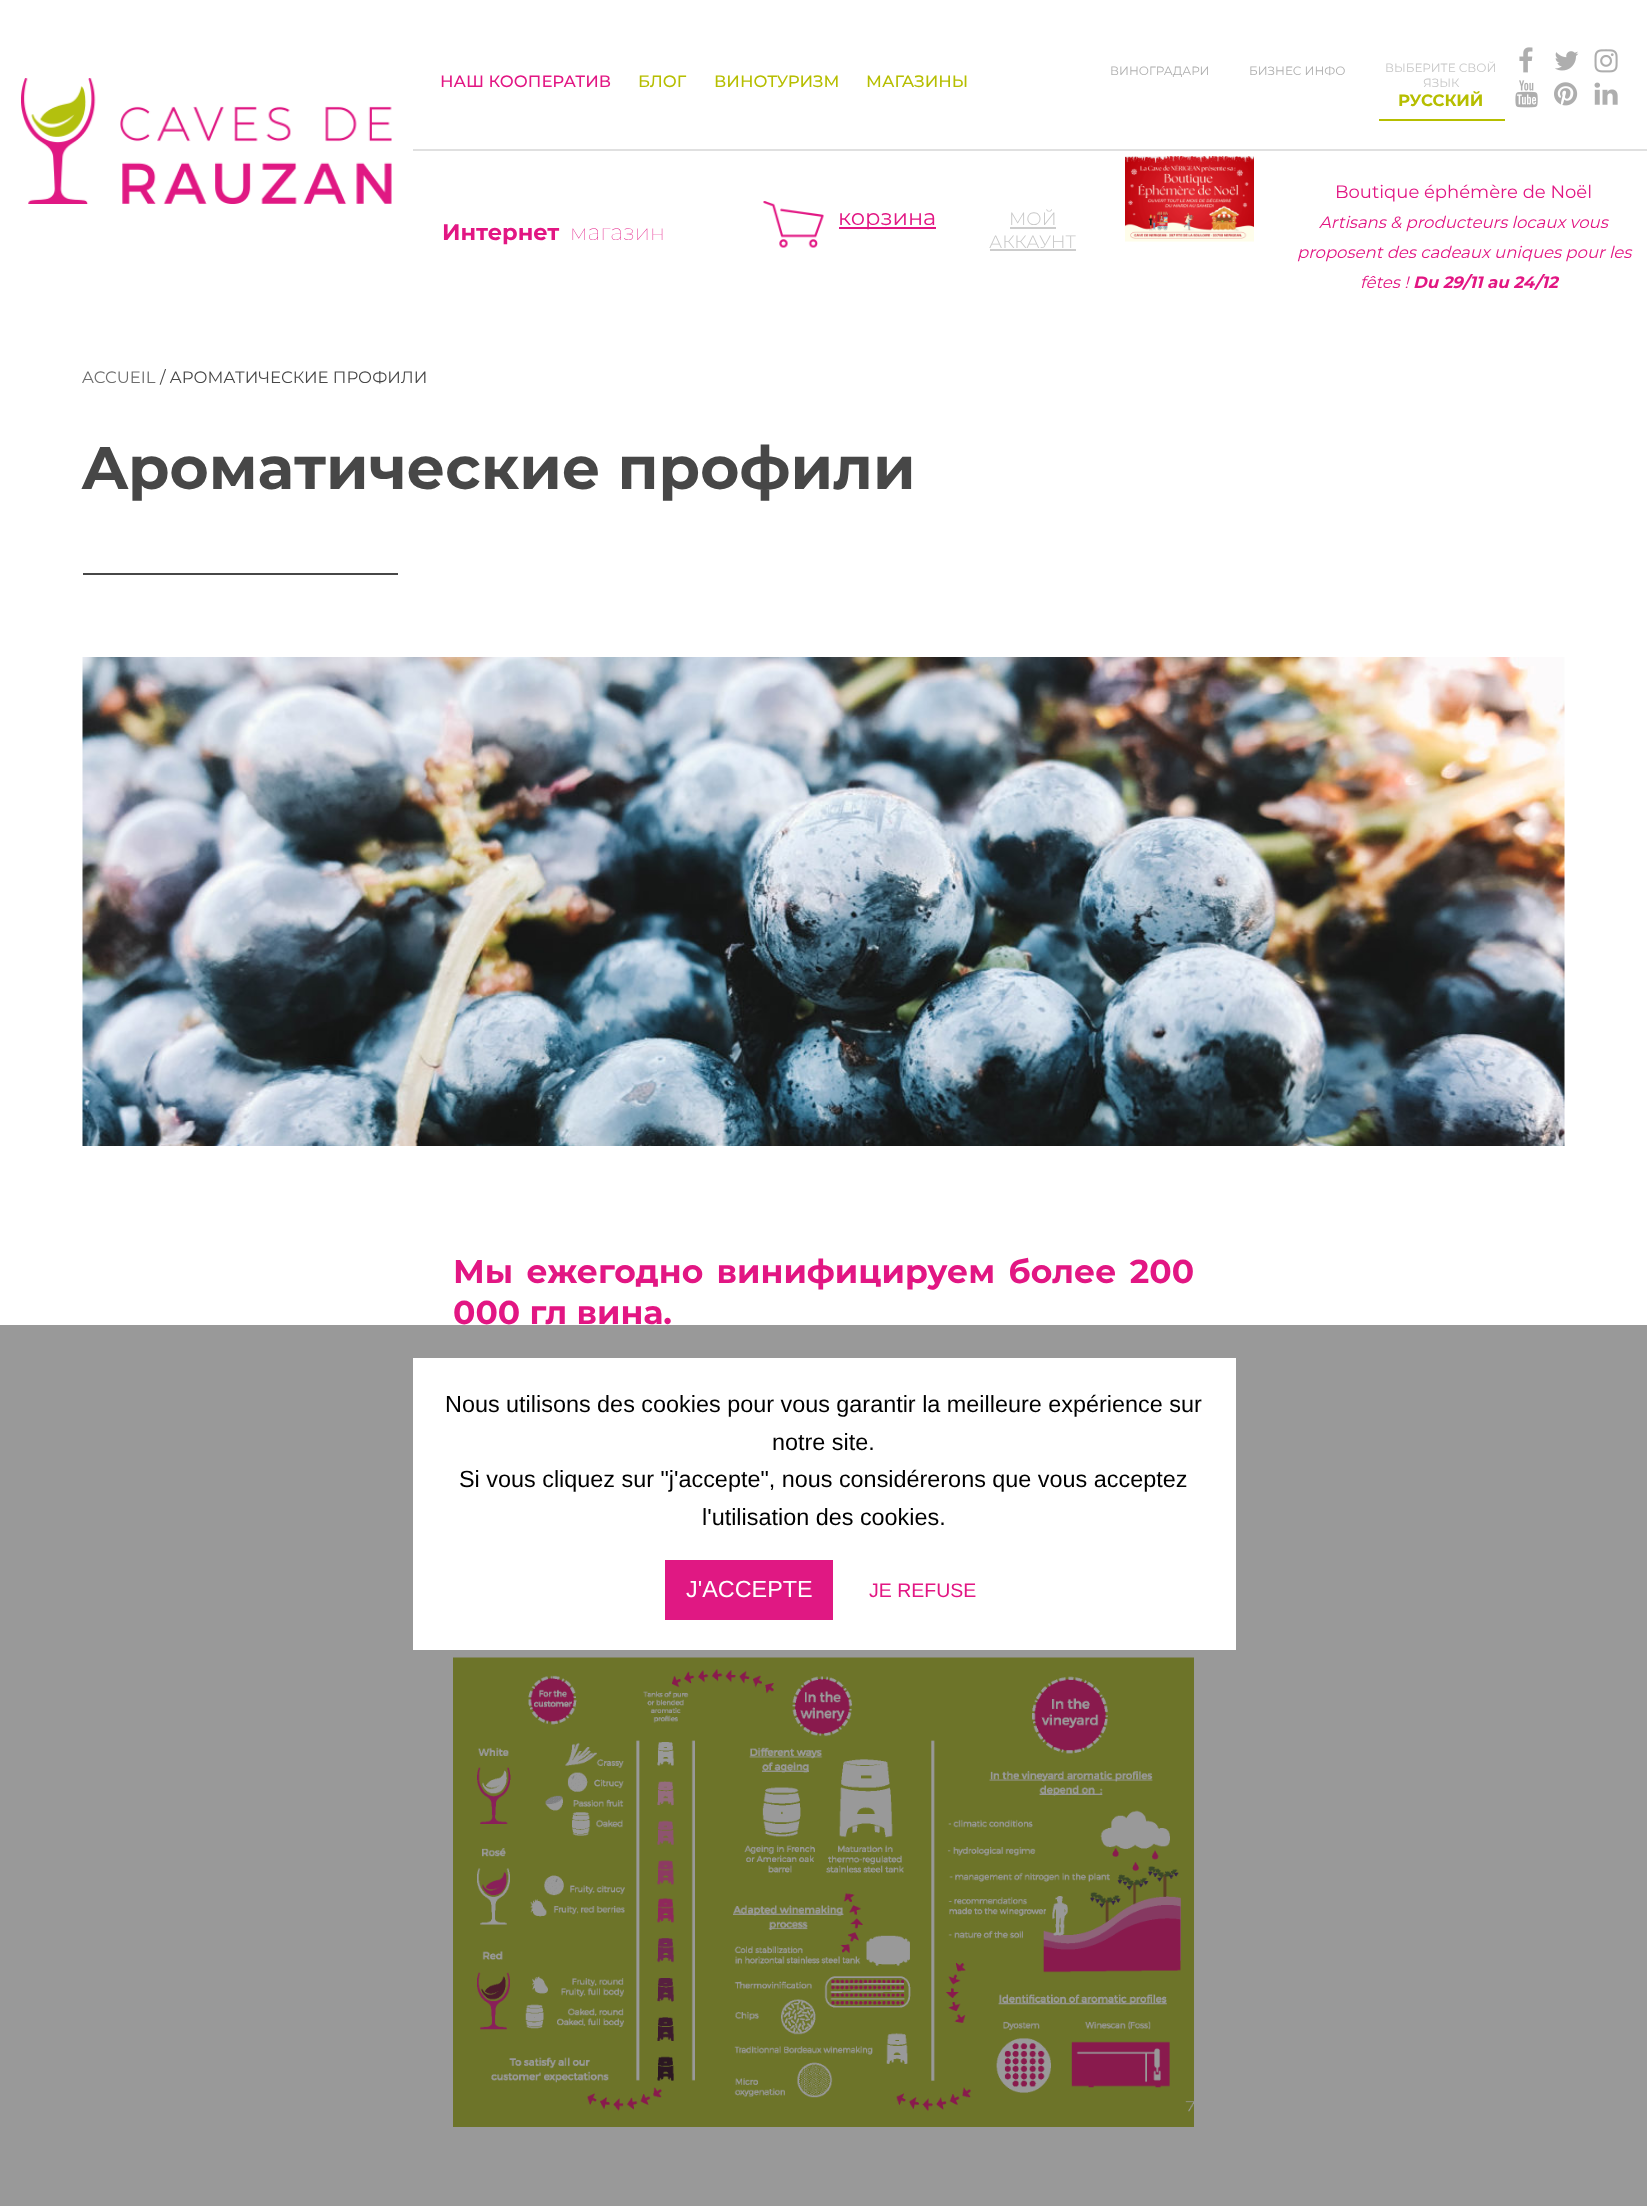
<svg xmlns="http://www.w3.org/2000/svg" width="1647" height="2206">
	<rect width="100%" height="100%" fill="#FFFFFF" />
	<rect x="0" y="1325" width="1647" height="881" fill="#999999" />
	<image x="21" y="78" width="371" height="126" href="assets/img1.png" />
	<rect x="413" y="149" width="685" height="2" fill="#E0E0E0" />
	<text x="440" y="87" font-family="Montserrat" font-size="16.5" font-weight="500" fill="#E21683">НАШ КООПЕРАТИВ</text>
	<g font-family="Montserrat" font-size="16.5" font-weight="500" fill="#B6BE00">
		<text x="638" y="87">БЛОГ</text>
		<text x="714" y="87">ВИНОТУРИЗМ</text>
		<text x="866" y="87">МАГАЗИНЫ</text>
	</g>
	<rect x="839" y="227" width="97" height="2" fill="#E21683" />
	<text x="838" y="225" font-family="Montserrat" font-size="22.5" fill="#E21683">корзина</text>
	<text x="1009" y="225" font-family="Montserrat" font-size="18" font-weight="300" fill="#C7C7C7">МОЙ</text>
	<rect x="1010" y="227" width="46" height="2" fill="#CCCCCC" />
	<text x="989" y="248" font-family="Montserrat" font-size="18" font-weight="300" fill="#C7C7C7">АККАУНТ</text>
	<rect x="990" y="249" width="86" height="2" fill="#CCCCCC" />
	<image x="763" y="201" width="61" height="47" href="assets/img2.png" />
	<text x="442" y="240" font-family="Montserrat" font-size="22.5" font-weight="700" fill="#E21683">Интернет</text>
	<text x="570" y="240" font-family="Montserrat" font-size="22.5" font-weight="100" fill="#E21683">магазин</text>
	<g font-family="Montserrat" font-size="12" fill="#AEAEAE">
		<text x="1110" y="75">ВИНОГРАДАРИ</text>
		<text x="1249" y="75">БИЗНЕС ИНФО</text>
	</g>
	<rect x="1098" y="149" width="549" height="2" fill="#E0E0E0" />
	<g font-family="Montserrat" font-size="12" fill="#C7C7C7">
		<text x="1385" y="72">ВЫБЕРИТЕ СВОЙ</text>
		<text x="1423" y="87">ЯЗЫК</text>
	</g>
	<rect x="1379" y="119" width="126" height="2" fill="#B6BE00" />
	<text x="1398" y="106" font-family="Montserrat" font-size="16.5" font-weight="700" fill="#B6BE00">РУССКИЙ</text>
	<image x="1519" y="47" width="14" height="26" href="assets/img3.png" />
	<image x="1555" y="51" width="24" height="20" href="assets/img4.png" />
	<image x="1594" y="49" width="24" height="24" href="assets/img5.png" />
	<image x="1515" y="80" width="23" height="28" href="assets/img6.png" />
	<image x="1554" y="82" width="24" height="24" href="assets/img7.png" />
	<image x="1594" y="82" width="24" height="23" href="assets/img8.png" />
	<image x="1125" y="156" width="129" height="86" href="assets/img9.png" />
	<text x="1335" y="198" font-family="Montserrat" font-size="18" fill="#E21683">Boutique éphémère de Noël</text>
	<g font-family="Montserrat" font-size="16.5" font-style="italic" fill="#E21683">
		<text x="1319" y="228">Artisans &amp; producteurs locaux vous</text>
		<text x="1297" y="258">proposent des cadeaux uniques pour les</text>
		<text x="1360" y="288">fêtes !</text>
	</g>
	<text x="1413" y="288" font-family="Montserrat" font-size="16.5" font-weight="700" font-style="italic" fill="#E21683">Du 29/11 au 24/12</text>
	<text x="82" y="383" font-family="Montserrat" font-size="16.5" fill="#6D6D6D">ACCUEIL</text>
	<text x="160" y="383" font-family="Montserrat" font-size="16.5" fill="#474747">/ AРОМАТИЧЕСКИЕ ПРОФИЛИ</text>
	<text x="82" y="489" font-family="Montserrat" font-size="60" font-weight="700" fill="#474747">Aроматические профили</text>
	<rect x="83" y="573" width="315" height="2" fill="#474747" />
	<image x="82" y="657" width="1483" height="489" href="assets/img10.png" />
	<g font-family="Montserrat" font-size="33" font-weight="700" fill="#E21683">
		<text x="453" y="1283" word-spacing="4">Мы ежегодно винифицируем более 200</text>
		<text x="453" y="1324">000 гл вина.</text>
	</g>
	<image x="453" y="1657" width="741" height="470" href="assets/img11.png" />
	<rect x="413" y="1358" width="823" height="292" fill="#FFFFFF" />
	<g font-family="Liberation Sans" font-size="23.4" fill="#000000">
		<text x="445" y="1412">Nous utilisons des cookies pour vous garantir la meilleure expérience sur</text>
		<text x="772" y="1450">notre site.</text>
		<text x="459" y="1487">Si vous cliquez sur "j'accepte", nous considérerons que vous acceptez</text>
		<text x="702" y="1525">l'utilisation des cookies.</text>
	</g>
	<rect x="665" y="1560" width="168" height="60" fill="#E01883" />
	<text x="686" y="1597" font-family="Liberation Sans" font-size="23.4" fill="#FFFFFF">J'ACCEPTE</text>
	<text x="869" y="1597" font-family="Liberation Sans" font-size="19.5" fill="#E21683">JE REFUSE</text>
</svg>
